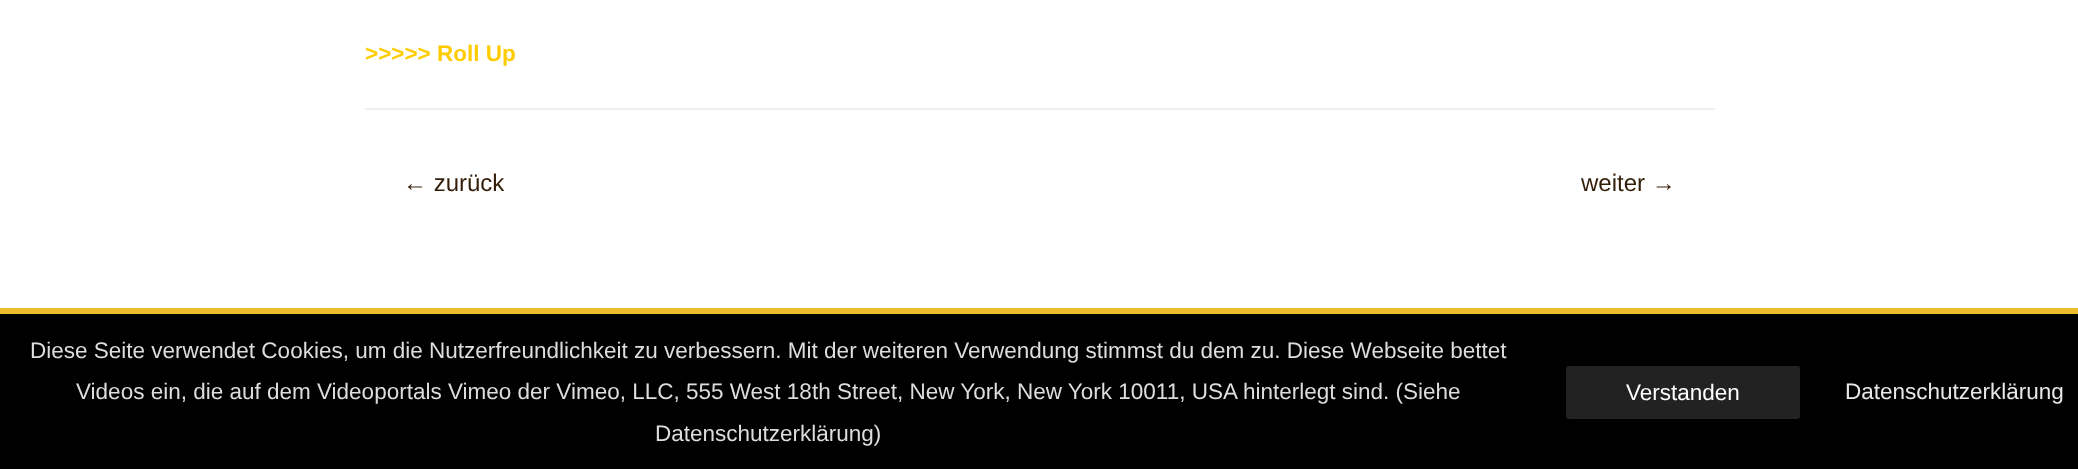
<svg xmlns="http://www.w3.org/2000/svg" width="2078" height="469">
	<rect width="100%" height="100%" fill="#FFFFFF" />
	<text x="365" y="61" font-family="Liberation Sans" font-size="22.5" font-weight="700" fill="#FFCC00">&gt;&gt;&gt;&gt;&gt; Roll Up</text>
	<rect x="365" y="108" width="1350" height="2" fill="#EEEEEE" />
	<g font-family="Liberation Sans" font-size="24" fill="#331E09">
		<text x="403" y="191">← zurück</text>
		<text x="1581" y="191">weiter →</text>
	</g>
	<rect x="0" y="308" width="2078" height="6" fill="#EBBD2C" />
	<rect x="0" y="314" width="2078" height="155" fill="#000000" />
	<g font-family="Liberation Sans" font-size="22.5" fill="#DDDDDD">
		<text x="30" y="358">Diese Seite verwendet Cookies, um die Nutzerfreundlichkeit zu verbessern. Mit der weiteren Verwendung stimmst du dem zu. Diese Webseite bettet</text>
		<text x="76" y="399">Videos ein, die auf dem Videoportals Vimeo der Vimeo, LLC, 555 West 18th Street, New York, New York 10011, USA hinterlegt sind. (Siehe</text>
		<text x="655" y="441">Datenschutzerklärung)</text>
	</g>
	<rect x="1566" y="366" width="234" height="53" rx="3" fill="#222222" />
	<text x="1626" y="400" font-family="Liberation Sans" font-size="22.5" fill="#FFFFFF">Verstanden</text>
	<text x="1845" y="399" font-family="Liberation Sans" font-size="22.5" fill="#E8E8E8">Datenschutzerklärung</text>
</svg>
